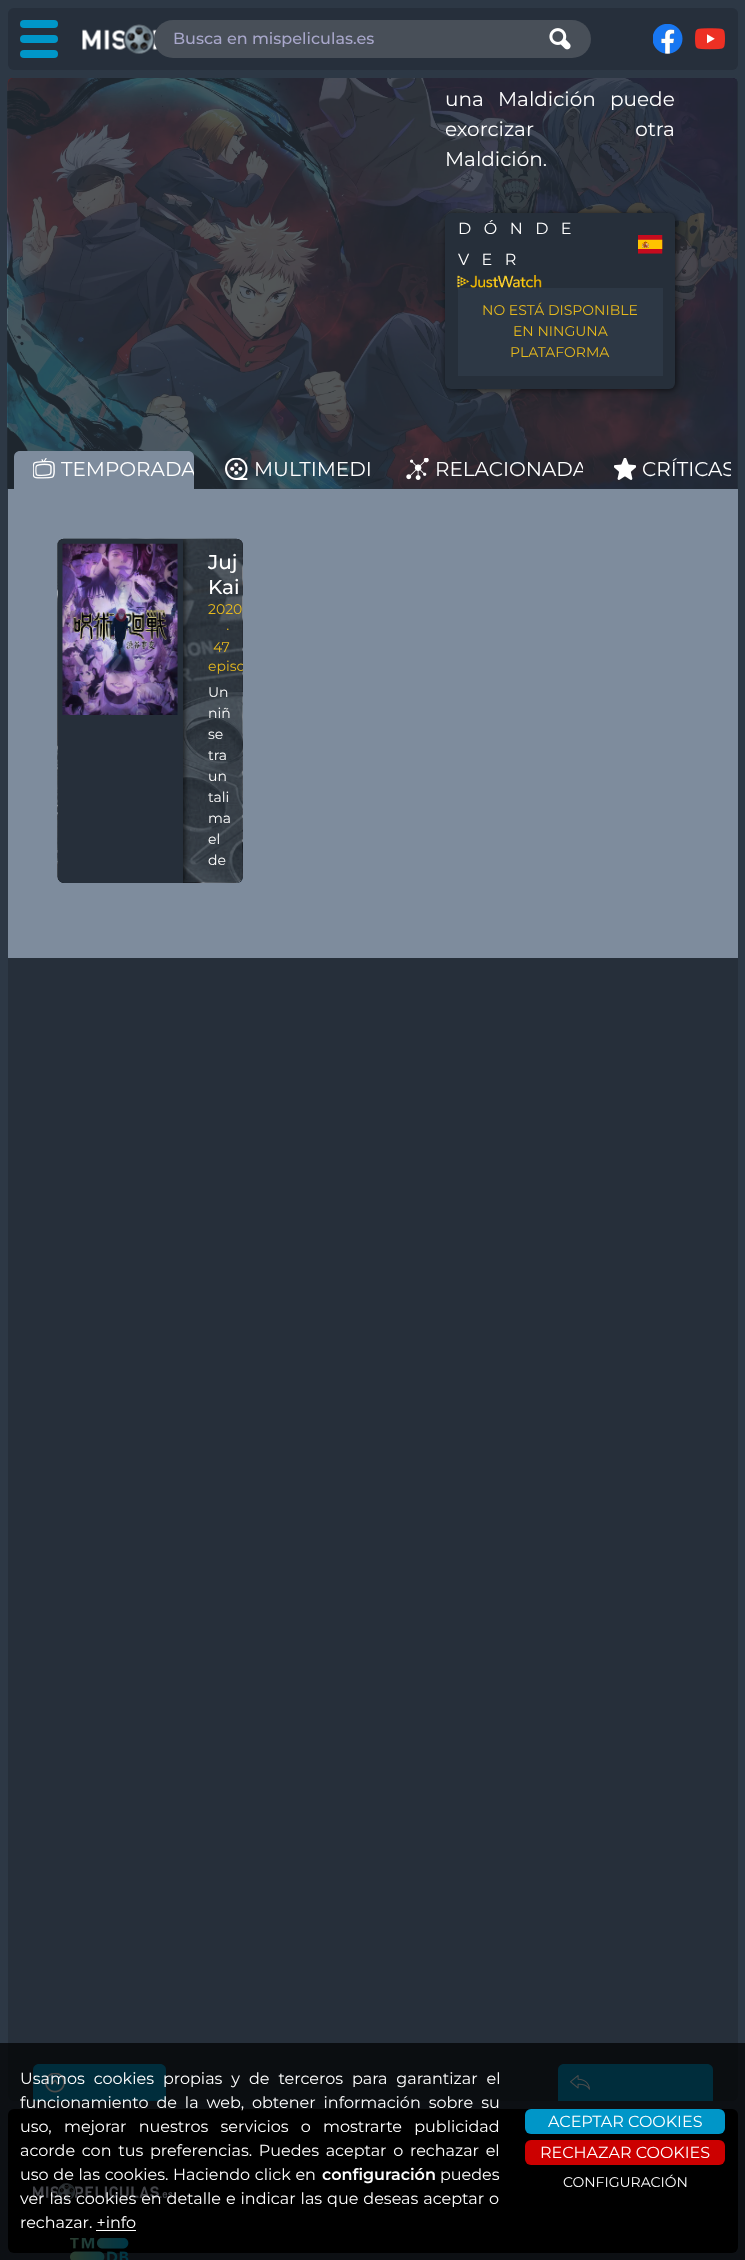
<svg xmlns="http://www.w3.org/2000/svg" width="745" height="2260">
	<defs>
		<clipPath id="clip1"><path d="M20 451H188C191.5 451 194 453.5 194 457V489H14V457C14 453.5 16.5 451 20 451Z" /></clipPath>
		<clipPath id="clip2"><path d="M394 451H577C580.5 451 583 453.5 583 457V489H388V457C388 453.5 390.5 451 394 451Z" /></clipPath>
		<clipPath id="clip3"><path d="M601 451H725C728.5 451 731 453.5 731 457V489H595V457C595 453.5 597.5 451 601 451Z" /></clipPath>
		<clipPath id="clip4"><rect x="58" y="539" width="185" height="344" rx="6" /></clipPath>
		<clipPath id="clip5"><rect x="58" y="539" width="185" height="344" rx="6" /></clipPath>
	</defs>
	<rect width="100%" height="100%" fill="#2D3845" />
	<rect x="8" y="8" width="730" height="62" rx="6" fill="#262F3B" />
	<rect x="20" y="20" width="38" height="8" rx="4" fill="#0096C8" />
	<rect x="20" y="35" width="38" height="8" rx="4" fill="#0096C8" />
	<rect x="20" y="50" width="38" height="8" rx="4" fill="#0096C8" />
	<image x="82" y="24" width="76" height="30" href="assets/img1.png" />
	<rect x="154" y="20" width="437" height="38" rx="19" fill="#484F58" />
	<text x="173" y="44" font-family="Montserrat" font-size="16" font-weight="500" fill="#A8A7CA">Busca en mispeliculas.es</text>
	<image x="549" y="28" width="22" height="22" href="assets/img2.png" />
	<image x="653" y="24" width="30" height="30" href="assets/img3.png" />
	<image x="695" y="28" width="30" height="22" href="assets/img4.png" />
	<rect x="8" y="78" width="730" height="2023" rx="6" fill="#262F3A" />
	<image x="7" y="78" width="731" height="411" href="assets/img5.png" />
	<path d="M14 78H732C735.5 78 738 80.5 738 84V489H8V84C8 80.5 10.5 78 14 78Z" fill="#262F3A" fill-opacity="0.8" />
	<g font-family="Montserrat" font-size="20" fill="#FFFFFF">
		<text x="445" y="106" word-spacing="9">una Maldición puede</text>
		<text x="445" y="136" word-spacing="96">exorcizar otra</text>
		<text x="445" y="166">Maldición.</text>
	</g>
	<rect x="446" y="214" width="230" height="176" rx="6" fill="#000000" fill-opacity="0.6" filter="blur(3px)" />
	<rect x="445" y="213" width="230" height="176" rx="6" fill="#262F3A" />
	<image x="638" y="235" width="25" height="19" href="assets/img6.png" />
	<g font-family="Montserrat" font-size="16" letter-spacing="12.5" fill="#FFFFFF">
		<text x="458" y="234">DÓNDE</text>
		<text x="458" y="265">VER</text>
	</g>
	<image x="457" y="275" width="85" height="13" href="assets/img7.png" />
	<rect x="458" y="288" width="205" height="88" fill="#2D3845" />
	<g font-family="Montserrat" font-size="14" fill="#E6B91E">
		<text x="482" y="315">NO ESTÁ DISPONIBLE</text>
		<text x="513" y="336">EN NINGUNA</text>
		<text x="510" y="357">PLATAFORMA</text>
	</g>
	<path d="M20 451H188C191.5 451 194 453.5 194 457V489H14V457C14 453.5 16.5 451 20 451Z" fill="#7E8C9D" />
	<image x="33" y="458" width="22" height="21" href="assets/img8.png" />
	<g clip-path="url(#clip1)">
		<text x="61" y="476" font-family="Montserrat" font-size="20" fill="#FFFFFF">TEMPORADA</text>
	</g>
	<image x="225" y="458" width="23" height="22" href="assets/img9.png" />
	<text x="254" y="476" font-family="Montserrat" font-size="20" fill="#FFFFFF">MULTIMEDI</text>
	<image x="406" y="458" width="23" height="22" href="assets/img10.png" />
	<g clip-path="url(#clip2)">
		<text x="435" y="476" font-family="Montserrat" font-size="20" fill="#FFFFFF">RELACIONADA</text>
	</g>
	<image x="614" y="458" width="22" height="22" href="assets/img11.png" />
	<g clip-path="url(#clip3)">
		<text x="642" y="476" font-family="Montserrat" font-size="20" fill="#FFFFFF">CRÍTICAS</text>
	</g>
	<rect x="8" y="489" width="730" height="469" fill="#7E8C9D" />
	<rect x="58" y="539" width="185" height="344" rx="6" fill="#262F3A" />
	<image x="57" y="538" width="186" height="345" href="assets/img12.png" />
	<image x="57" y="538" width="186" height="345" href="assets/img14.png" />
	<g clip-path="url(#clip4)">
		<rect x="60" y="539" width="125" height="344" fill="#000000" fill-opacity="0.6" filter="blur(2.5px)" />
	</g>
	<path d="M64 539C61 539 58 542 58 545V877C58 880 61 883 64 883H183V539Z" fill="#262F3A" />
	<image x="62" y="543" width="116" height="172" href="assets/img13.png" />
	<g font-family="Montserrat" font-size="20" font-weight="500" fill="#FFFFFF">
		<text x="208" y="569">Juj</text>
		<text x="208" y="594">Kai</text>
	</g>
	<g font-family="Montserrat" font-size="14" fill="#E6B91E">
		<text x="208" y="614">2020</text>
		<text x="226" y="633">·</text>
		<text x="213" y="652">47</text>
	</g>
	<g clip-path="url(#clip5)">
		<text x="208" y="671" font-family="Montserrat" font-size="14" fill="#E6B91E">episo</text>
	</g>
	<g font-family="Montserrat" font-size="14" fill="#FFFFFF">
		<text x="208" y="697">Un</text>
		<text x="208" y="718">niñ</text>
		<text x="208" y="739">se</text>
		<text x="208" y="760">tra</text>
		<text x="208" y="781">un</text>
		<text x="208" y="802">tali</text>
		<text x="208" y="823">ma</text>
		<text x="208" y="844">el</text>
		<text x="208" y="865">de</text>
	</g>
	<path d="M39 2064H160C163.5 2064 166 2066.5 166 2070V2101H33V2070C33 2066.5 35.5 2064 39 2064Z" fill="#0096C8" />
	<image x="45" y="2073" width="20" height="20" href="assets/img15.png" />
	<path d="M564 2064H707C710.5 2064 713 2066.5 713 2070V2101H558V2070C558 2066.5 560.5 2064 564 2064Z" fill="#0096C8" />
	<image x="570" y="2075" width="20" height="15" href="assets/img16.png" />
	<rect x="8" y="2109" width="730" height="144" rx="6" fill="#000000" />
	<image x="33" y="2183" width="140" height="18" href="assets/img17.png" />
	<image x="70" y="2238" width="59" height="22" href="assets/img18.png" />
	<rect x="0" y="2043" width="745" height="217" fill="#000000" fill-opacity="0.7" />
	<g font-family="Montserrat" font-size="16" fill="#FFFFFF">
		<text x="20" y="2084" word-spacing="4.75">Usamos cookies propias y de terceros para garantizar el</text>
		<text x="20" y="2108" word-spacing="3.75">funcionamiento de la web, obtener información sobre su</text>
		<text x="20" y="2132" word-spacing="8">uso, mejorar nuestros servicios o mostrarte publicidad</text>
		<text x="20" y="2156" word-spacing="2.5">acorde con tus preferencias. Puedes aceptar o rechazar el</text>
		<text x="20" y="2180" word-spacing="0.5">uso de las cookies. Haciendo click en</text>
	</g>
	<text x="322" y="2180" font-family="Montserrat" font-size="16" font-weight="600" fill="#FFFFFF">configuración</text>
	<g font-family="Montserrat" font-size="16" fill="#FFFFFF">
		<text x="440" y="2180">puedes</text>
		<text x="20" y="2204" word-spacing="0.75">ver las cookies en detalle e indicar las que deseas aceptar o</text>
		<text x="20" y="2228">rechazar. +info</text>
	</g>
	<rect x="96" y="2230" width="40" height="1" fill="#FFFFFF" />
	<rect x="525" y="2109" width="200" height="25" rx="6" fill="#0096C8" />
	<text x="548" y="2127" font-family="Montserrat" font-size="16" fill="#FFFFFF">ACEPTAR COOKIES</text>
	<rect x="525" y="2140" width="200" height="25" rx="6" fill="#CC0000" />
	<text x="540" y="2158" font-family="Montserrat" font-size="16" fill="#FFFFFF">RECHAZAR COOKIES</text>
	<text x="563" y="2187" font-family="Montserrat" font-size="14" fill="#FFFFFF">CONFIGURACIÓN</text>
</svg>
